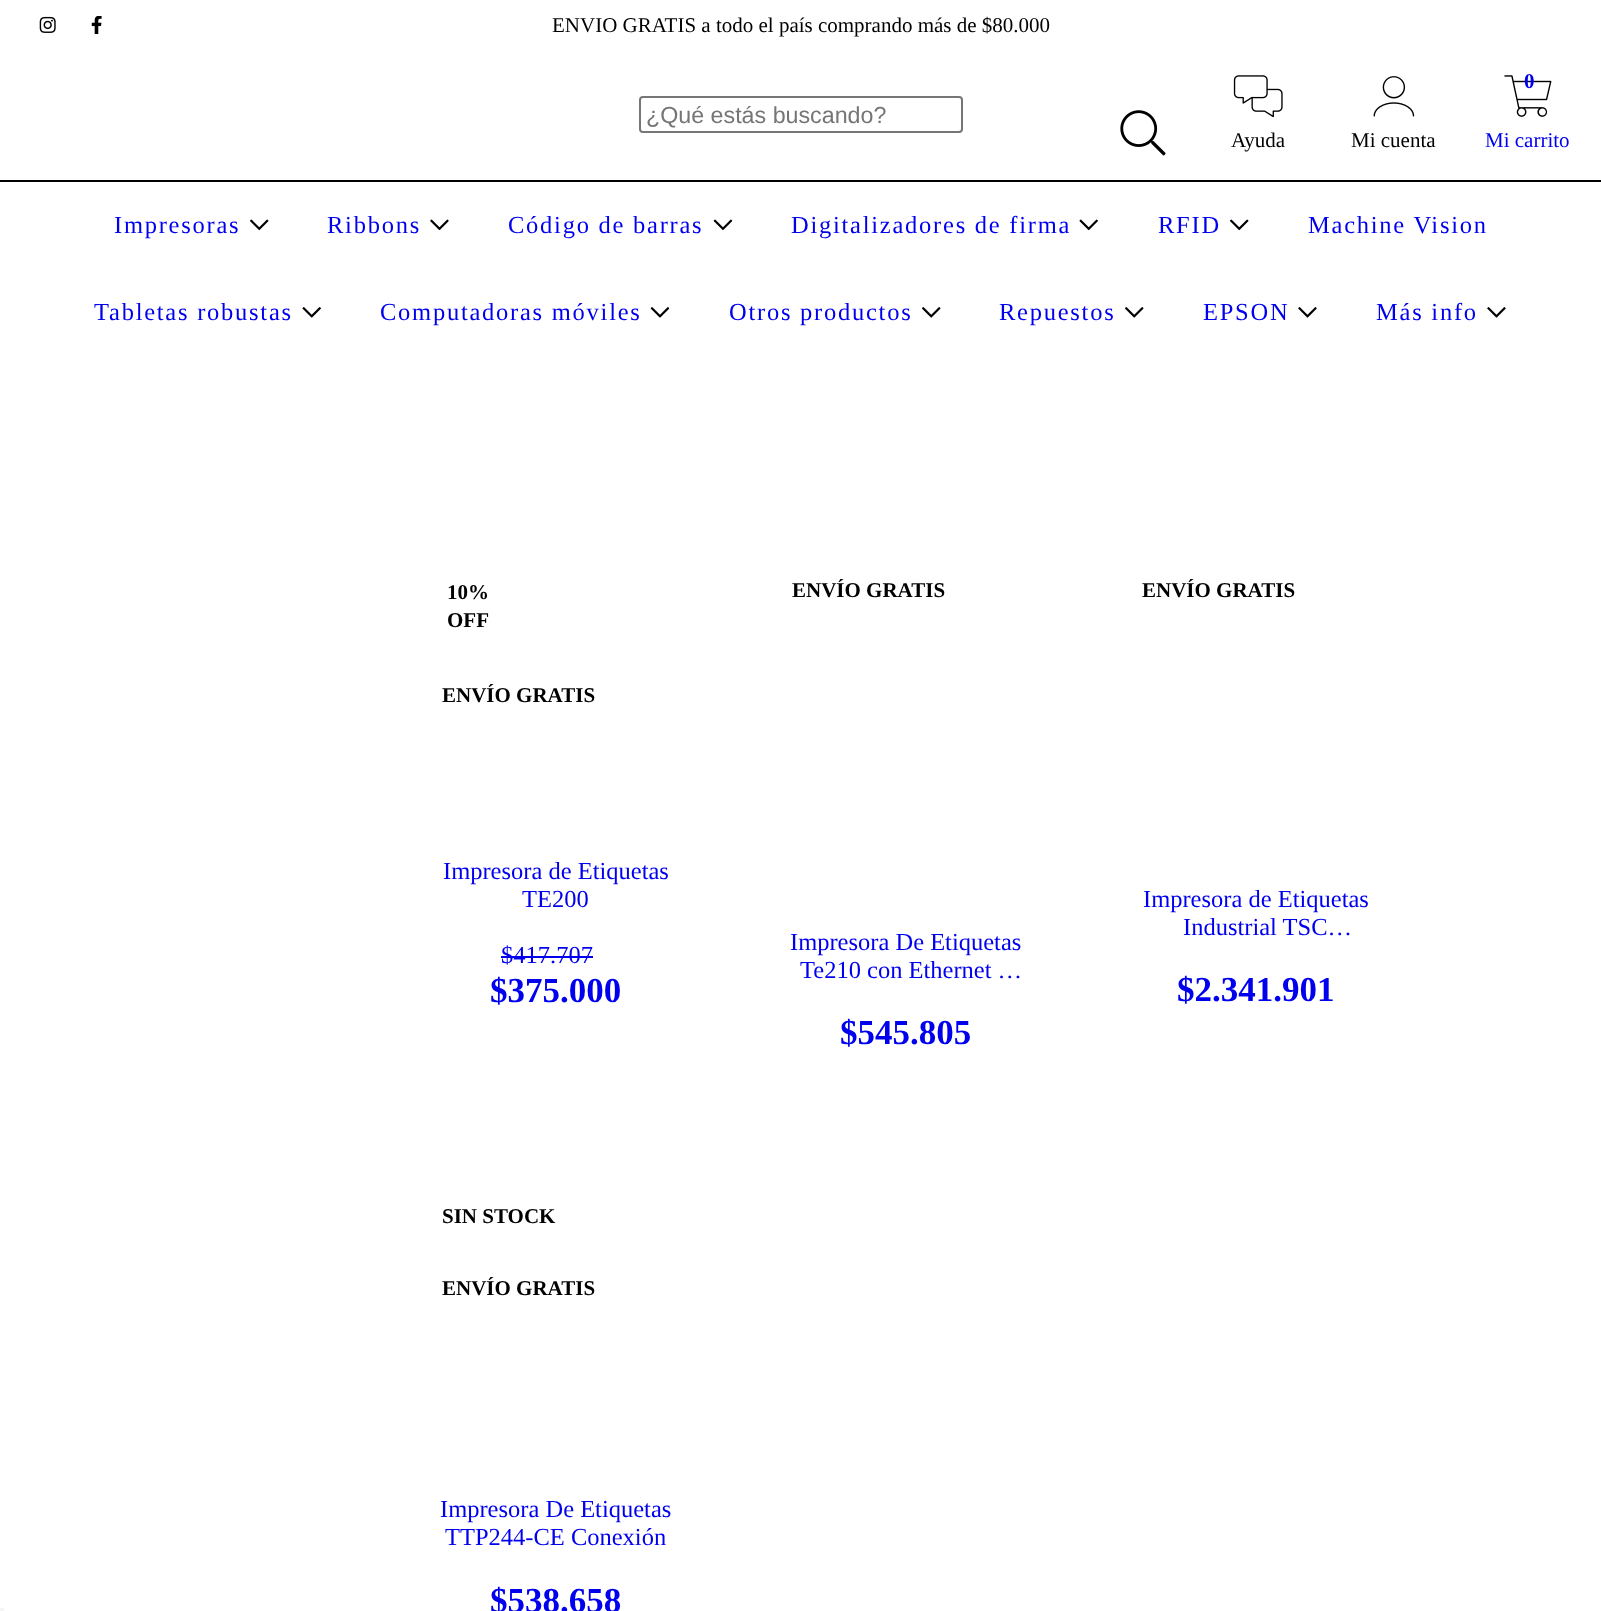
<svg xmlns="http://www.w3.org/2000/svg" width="1601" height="1611">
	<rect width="100%" height="100%" fill="#FFFFFF" />
	<image x="39" y="16" width="17" height="17" href="assets/img1.png" />
	<image x="91" y="16" width="11" height="18" href="assets/img2.png" />
	<text x="552" y="32" font-family="Liberation Serif" font-size="21" fill="#000000">ENVIO GRATIS a todo el país comprando más de $80.000</text>
	<rect x="640" y="97" width="322" height="35" rx="3" fill="none" stroke="#767676" stroke-width="2" />
	<text x="646" y="123" font-family="Liberation Sans" font-size="23.25" fill="#757575">¿Qué estás buscando?</text>
	<image x="1120" y="110" width="46" height="46" href="assets/img3.png" />
	<image x="1233" y="75" width="50" height="42" href="assets/img4.png" />
	<text x="1231" y="147" font-family="Liberation Serif" font-size="21" fill="#000000">Ayuda</text>
	<image x="1373" y="76" width="42" height="41" href="assets/img5.png" />
	<text x="1351" y="147" font-family="Liberation Serif" font-size="21" fill="#000000">Mi cuenta</text>
	<image x="1504" y="75" width="48" height="42" href="assets/img6.png" />
	<text x="1524" y="88" font-family="Liberation Serif" font-size="21" font-weight="700" fill="#0000EE">0</text>
	<text x="1485" y="147" font-family="Liberation Serif" font-size="21" fill="#0000EE">Mi carrito</text>
	<rect x="0" y="180" width="1601" height="2" fill="#000000" />
	<text x="114" y="233" font-family="Liberation Serif" font-size="24.5" letter-spacing="1.75" fill="#0000EE">Impresoras</text>
	<image x="250" y="219" width="19" height="12" href="assets/img7.png" />
	<text x="327" y="233" font-family="Liberation Serif" font-size="24.5" letter-spacing="1.75" fill="#0000EE">Ribbons</text>
	<image x="430" y="219" width="19" height="12" href="assets/img8.png" />
	<text x="508" y="233" font-family="Liberation Serif" font-size="24.5" letter-spacing="1.75" fill="#0000EE">Código de barras</text>
	<image x="713" y="219" width="20" height="12" href="assets/img9.png" />
	<text x="791" y="233" font-family="Liberation Serif" font-size="24.5" letter-spacing="1.75" fill="#0000EE">Digitalizadores de firma</text>
	<image x="1079" y="219" width="19" height="12" href="assets/img10.png" />
	<text x="1158" y="233" font-family="Liberation Serif" font-size="24.5" letter-spacing="1.75" fill="#0000EE">RFID</text>
	<image x="1230" y="219" width="19" height="12" href="assets/img7.png" />
	<g font-family="Liberation Serif" font-size="24.5" letter-spacing="1.75" fill="#0000EE">
		<text x="1308" y="233">Machine Vision</text>
		<text x="94" y="320">Tabletas robustas</text>
	</g>
	<image x="302" y="307" width="19" height="11" href="assets/img11.png" />
	<text x="380" y="320" font-family="Liberation Serif" font-size="24.5" letter-spacing="1.75" fill="#0000EE">Computadoras móviles</text>
	<image x="650" y="307" width="20" height="11" href="assets/img12.png" />
	<text x="729" y="320" font-family="Liberation Serif" font-size="24.5" letter-spacing="1.75" fill="#0000EE">Otros productos</text>
	<image x="922" y="307" width="19" height="11" href="assets/img13.png" />
	<text x="999" y="320" font-family="Liberation Serif" font-size="24.5" letter-spacing="1.75" fill="#0000EE">Repuestos</text>
	<image x="1125" y="307" width="19" height="11" href="assets/img13.png" />
	<text x="1203" y="320" font-family="Liberation Serif" font-size="24.5" letter-spacing="1.75" fill="#0000EE">EPSON</text>
	<image x="1298" y="307" width="19" height="11" href="assets/img14.png" />
	<text x="1376" y="320" font-family="Liberation Serif" font-size="24.5" letter-spacing="1.75" fill="#0000EE">Más info</text>
	<image x="1487" y="307" width="19" height="11" href="assets/img14.png" />
	<rect x="0" y="1608" width="4" height="3" fill="#F5F5F5" />
	<g font-family="Liberation Serif" font-size="21" font-weight="700" fill="#000000">
		<text x="447" y="599">10%</text>
		<text x="447" y="627">OFF</text>
		<text x="442" y="702">ENVÍO GRATIS</text>
	</g>
	<g font-family="Liberation Serif" font-size="24.5" fill="#0000EE">
		<text x="443" y="879">Impresora de Etiquetas</text>
		<text x="522" y="907">TE200</text>
		<text x="501" y="963">$417.707</text>
	</g>
	<rect x="501" y="956" width="92" height="2" fill="#0000EE" />
	<text x="490" y="1002" font-family="Liberation Serif" font-size="35" font-weight="700" fill="#0000EE">$375.000</text>
	<text x="792" y="597" font-family="Liberation Serif" font-size="21" font-weight="700" fill="#000000">ENVÍO GRATIS</text>
	<g font-family="Liberation Serif" font-size="24.5" fill="#0000EE">
		<text x="790" y="950">Impresora De Etiquetas</text>
		<text x="800" y="978">Te210 con Ethernet …</text>
	</g>
	<text x="840" y="1044" font-family="Liberation Serif" font-size="35" font-weight="700" fill="#0000EE">$545.805</text>
	<text x="1142" y="597" font-family="Liberation Serif" font-size="21" font-weight="700" fill="#000000">ENVÍO GRATIS</text>
	<g font-family="Liberation Serif" font-size="24.5" fill="#0000EE">
		<text x="1143" y="907">Impresora de Etiquetas</text>
		<text x="1183" y="935">Industrial TSC…</text>
	</g>
	<text x="1177" y="1001" font-family="Liberation Serif" font-size="35" font-weight="700" fill="#0000EE">$2.341.901</text>
	<g font-family="Liberation Serif" font-size="21" font-weight="700" fill="#000000">
		<text x="442" y="1223">SIN STOCK</text>
		<text x="442" y="1295">ENVÍO GRATIS</text>
	</g>
	<g font-family="Liberation Serif" font-size="24.5" fill="#0000EE">
		<text x="440" y="1517">Impresora De Etiquetas</text>
		<text x="445" y="1545">TTP244-CE Conexión</text>
	</g>
	<text x="490" y="1612" font-family="Liberation Serif" font-size="35" font-weight="700" fill="#0000EE">$538.658</text>
</svg>
